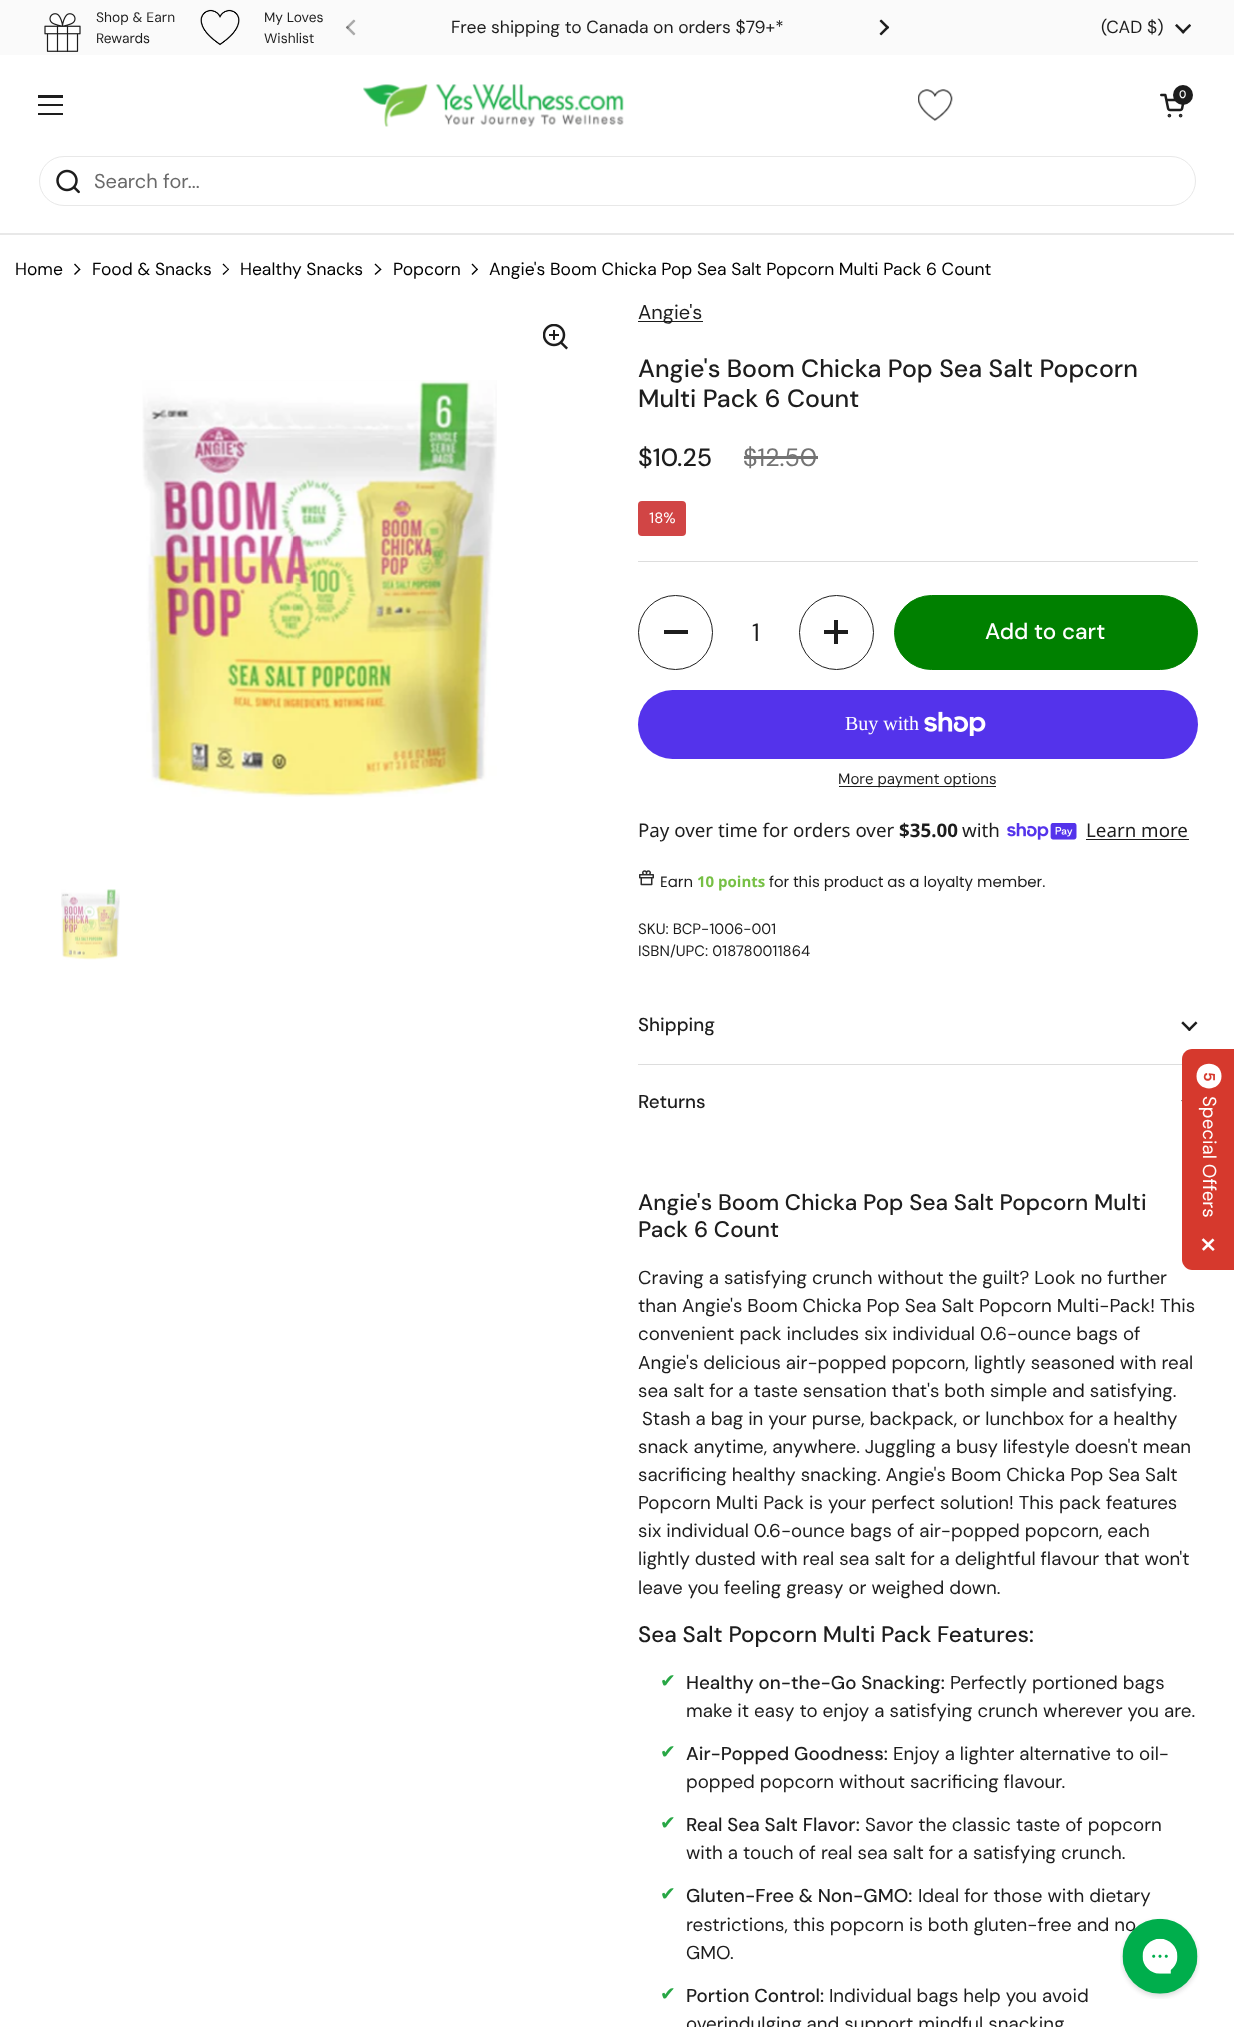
<svg xmlns="http://www.w3.org/2000/svg" width="1234" height="2027">
	<rect width="100%" height="100%" fill="#FFFFFF" />
	<rect x="0" y="0" width="1234" height="55" fill="#FAFAFA" />
	<image x="44" y="13" width="37" height="39" href="assets/img1.png" />
	<g font-family="DM Sans" font-size="13.75" fill="#1D1D1D">
		<text x="96" y="22">Shop &amp; Earn</text>
		<text x="96" y="43">Rewards</text>
	</g>
	<image x="200" y="9" width="40" height="37" href="assets/img2.png" />
	<g font-family="DM Sans" font-size="13.75" fill="#1D1D1D">
		<text x="264" y="22">My Loves</text>
		<text x="264" y="43">Wishlist</text>
	</g>
	<image x="345" y="19" width="11" height="17" href="assets/img3.png" />
	<text x="451" y="33" font-family="'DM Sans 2'" font-size="17.5" fill="#1D1D1D">Free shipping to Canada on orders $79+*</text>
	<image x="879" y="19" width="11" height="17" href="assets/img4.png" />
	<text x="1101" y="33" font-family="'DM Sans 2'" font-size="17.5" fill="#1D1D1D">(CAD $)</text>
	<image x="1175" y="24" width="16" height="10" href="assets/img5.png" />
	<rect x="38" y="95" width="25" height="3" fill="#1D1D1D" />
	<rect x="38" y="104" width="25" height="2" fill="#1D1D1D" />
	<rect x="38" y="113" width="25" height="2" fill="#1D1D1D" />
	<image x="363" y="84" width="261" height="43" href="assets/img6.png" />
	<image x="918" y="89" width="35" height="32" href="assets/img7.png" />
	<image x="1160" y="93" width="25" height="25" href="assets/img8.png" />
	<circle cx="1183" cy="95" r="10" fill="#1D1D1D" />
	<text x="1179" y="98" font-family="'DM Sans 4'" font-size="11" font-weight="500" fill="#FFFFFF">0</text>
	<rect x="0" y="233" width="1234" height="2" fill="#E8E8E8" />
	<rect x="39.5" y="156.5" width="1156" height="49" rx="24.5" fill="none" stroke="#E8E8E8" />
	<image x="56" y="169" width="24" height="25" href="assets/img9.png" />
	<text x="94" y="188" font-family="'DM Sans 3'" font-size="20" fill="#6A6A6A">Search for...</text>
	<text x="15" y="275" font-family="'DM Sans 2'" font-size="17.5" fill="#000000">Home</text>
	<path d="M75 263.5L80.5 269.5L79.5 270L74 264.5Z" fill="#000000" />
	<path d="M79.5 268.5L80.5 269.5L75 275L74 274Z" fill="#000000" />
	<text x="92" y="275" font-family="'DM Sans 2'" font-size="17.5" fill="#000000">Food &amp; Snacks</text>
	<path d="M223.5 263.5L229 269.5L228.5 270L222.5 264.5Z" fill="#000000" />
	<path d="M228.5 268.5L229 269.5L223.5 275L222.5 274Z" fill="#000000" />
	<text x="240" y="275" font-family="'DM Sans 2'" font-size="17.5" fill="#000000">Healthy Snacks</text>
	<path d="M375.5 263.5L381.5 269.5L380.5 270L374.5 264.5Z" fill="#000000" />
	<path d="M380.5 268.5L381.5 269.5L375.5 275L374.5 274Z" fill="#000000" />
	<text x="393" y="275" font-family="'DM Sans 2'" font-size="17.5" fill="#000000">Popcorn</text>
	<path d="M472.5 263.5L478 269.5L477 270L471.5 264.5Z" fill="#000000" />
	<path d="M477 268.5L478 269.5L472.5 275L471.5 274Z" fill="#000000" />
	<text x="489" y="275" font-family="'DM Sans 2'" font-size="17.5" fill="#000000">Angie's Boom Chicka Pop Sea Salt Popcorn Multi Pack 6 Count</text>
	<image x="543" y="324" width="25" height="26" href="assets/img10.png" />
	<image x="142" y="380" width="355" height="417" href="assets/img11.png" />
	<image x="61" y="889" width="59" height="71" href="assets/img12.png" />
	<rect x="638" y="321" width="65" height="1" fill="#1D1D1D" />
	<text x="638" y="319" font-family="'DM Sans 3'" font-size="20" fill="#1D1D1D">Angie's</text>
	<g font-family="DM Sans" font-size="25" font-weight="500" fill="#1D1D1D">
		<text x="638" y="377">Angie's Boom Chicka Pop Sea Salt Popcorn</text>
		<text x="638" y="407">Multi Pack 6 Count</text>
		<text x="638" y="466">$10.25</text>
	</g>
	<text x="743" y="466" font-family="'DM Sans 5'" font-size="25" fill="#737373">$12.50</text>
	<rect x="744" y="456" width="74" height="3" fill="#737373" />
	<rect x="638" y="501" width="48" height="35" rx="4" fill="#D14545" />
	<text x="649" y="523" font-family="DM Sans" font-size="15" fill="#FFFFFF">18%</text>
	<rect x="638" y="561" width="560" height="1" fill="#DDDDDD" />
	<circle cx="675.5" cy="632.5" r="37" fill="none" stroke="#1D1D1D" />
	<rect x="664" y="630" width="24" height="4" fill="#1D1D1D" />
	<text x="752" y="641" font-family="'DM Sans 5'" font-size="25" fill="#1D1D1D">1</text>
	<circle cx="836.5" cy="632.5" r="37" fill="none" stroke="#1D1D1D" />
	<rect x="834" y="620" width="4" height="24" fill="#1D1D1D" />
	<rect x="824" y="630" width="24" height="4" fill="#1D1D1D" />
	<rect x="894.5" y="595.5" width="303" height="74" rx="37" fill="#008000" stroke="#008000" />
	<text x="985" y="639" font-family="'DM Sans 2'" font-size="22.5" font-weight="500" fill="#FFFFFF">Add to cart</text>
	<rect x="638" y="690" width="560" height="69" rx="34.5" fill="#5433EB" />
	<text x="845" y="730" font-family="Liberation Serif" font-size="20" fill="#FFFFFF">Buy with</text>
	<image x="924" y="711" width="62" height="25" href="assets/img13.png" />
	<rect x="839" y="786" width="157" height="1" fill="#1D1D1D" />
	<text x="838" y="784" font-family="DM Sans" font-size="15" fill="#1D1D1D">More payment options</text>
	<text x="638" y="837" font-family="Noto Sans" font-size="18.75" fill="#1D1D1D">Pay over time for orders over</text>
	<text x="899" y="837" font-family="Noto Sans" font-size="18.75" font-weight="700" fill="#1D1D1D">$35.00</text>
	<text x="962" y="837" font-family="Noto Sans" font-size="18.75" fill="#1D1D1D">with</text>
	<image x="1007" y="823" width="70" height="17" href="assets/img14.png" />
	<text x="1086" y="837" font-family="Noto Sans" font-size="18.75" fill="#1D1D1D">Learn more</text>
	<rect x="1086" y="839" width="103" height="1" fill="#1D1D1D" />
	<image x="639" y="870" width="15" height="16" href="assets/img15.png" />
	<text x="660" y="887" font-family="Poppins" font-size="15" fill="#1D1D1D">Earn</text>
	<text x="697" y="887" font-family="Open Sans" font-size="15" font-weight="700" fill="#77C045">10 points</text>
	<text x="769" y="887" font-family="Poppins" font-size="15" fill="#1D1D1D">for this product as a loyalty member.</text>
	<g font-family="DM Sans" font-size="15" fill="#1D1D1D">
		<text x="638" y="934">SKU: BCP-1006-001</text>
		<text x="638" y="956">ISBN/UPC: 018780011864</text>
	</g>
	<text x="638" y="1031" font-family="'DM Sans 3'" font-size="18.75" font-weight="500" fill="#1D1D1D">Shipping</text>
	<image x="1181" y="1021" width="17" height="10" href="assets/img16.png" />
	<rect x="638" y="1064" width="544" height="1" fill="#DDDDDD" />
	<text x="638" y="1108" font-family="'DM Sans 3'" font-size="18.75" font-weight="500" fill="#1D1D1D">Returns</text>
	<image x="1181" y="1100" width="1" height="2" href="assets/img17.png" />
	<g font-family="'DM Sans 2'" font-size="22.5" font-weight="500" fill="#1D1D1D">
		<text x="638" y="1210">Angie's Boom Chicka Pop Sea Salt Popcorn Multi</text>
		<text x="638" y="1237">Pack 6 Count</text>
	</g>
	<g font-family="'DM Sans 4'" font-size="18.75" fill="#1D1D1D">
		<text x="638" y="1284">Craving a satisfying crunch without the guilt? Look no further</text>
		<text x="638" y="1312">than Angie's Boom Chicka Pop Sea Salt Popcorn Multi-Pack! This</text>
		<text x="638" y="1340">convenient pack includes six individual 0.6-ounce bags of</text>
		<text x="638" y="1369">Angie's delicious air-popped popcorn, lightly seasoned with real</text>
		<text x="638" y="1397">sea salt for a taste sensation that's both simple and satisfying.</text>
		<text x="642" y="1425">Stash a bag in your purse, backpack, or lunchbox for a healthy</text>
		<text x="638" y="1453">snack anytime, anywhere. Juggling a busy lifestyle doesn't mean</text>
		<text x="638" y="1481">sacrificing healthy snacking. Angie's Boom Chicka Pop Sea Salt</text>
		<text x="638" y="1509">Popcorn Multi Pack is your perfect solution! This pack features</text>
		<text x="638" y="1537">six individual 0.6-ounce bags of air-popped popcorn, each</text>
		<text x="638" y="1565">lightly dusted with real sea salt for a delightful flavour that won't</text>
		<text x="638" y="1594">leave you feeling greasy or weighed down.</text>
	</g>
	<text x="638" y="1642" font-family="'DM Sans 2'" font-size="22.5" font-weight="500" fill="#1D1D1D">Sea Salt Popcorn Multi Pack Features:</text>
	<text x="660" y="1687" font-family="DejaVu Sans" font-size="18.75" fill="#28A745">✔</text>
	<text x="686" y="1689" font-family="'DM Sans 3'" font-size="18.75" font-weight="500" fill="#1D1D1D">Healthy on-the-Go Snacking:</text>
	<g font-family="'DM Sans 4'" font-size="18.75" fill="#1D1D1D">
		<text x="950" y="1689">Perfectly portioned bags</text>
		<text x="686" y="1717">make it easy to enjoy a satisfying crunch wherever you are.</text>
	</g>
	<text x="660" y="1758" font-family="DejaVu Sans" font-size="18.75" fill="#28A745">✔</text>
	<text x="686" y="1760" font-family="'DM Sans 3'" font-size="18.75" font-weight="500" fill="#1D1D1D">Air-Popped Goodness:</text>
	<g font-family="'DM Sans 4'" font-size="18.75" fill="#1D1D1D">
		<text x="893" y="1760">Enjoy a lighter alternative to oil-</text>
		<text x="686" y="1788">popped popcorn without sacrificing flavour.</text>
	</g>
	<text x="660" y="1829" font-family="DejaVu Sans" font-size="18.75" fill="#28A745">✔</text>
	<text x="686" y="1831" font-family="'DM Sans 3'" font-size="18.75" font-weight="500" fill="#1D1D1D">Real Sea Salt Flavor:</text>
	<g font-family="'DM Sans 4'" font-size="18.75" fill="#1D1D1D">
		<text x="865" y="1831">Savor the classic taste of popcorn</text>
		<text x="686" y="1859">with a touch of real sea salt for a satisfying crunch.</text>
	</g>
	<text x="660" y="1900" font-family="DejaVu Sans" font-size="18.75" fill="#28A745">✔</text>
	<text x="686" y="1902" font-family="'DM Sans 3'" font-size="18.75" font-weight="500" fill="#1D1D1D">Gluten-Free &amp; Non-GMO:</text>
	<g font-family="'DM Sans 4'" font-size="18.75" fill="#1D1D1D">
		<text x="918" y="1902">Ideal for those with dietary</text>
		<text x="686" y="1931">restrictions, this popcorn is both gluten-free and no</text>
		<text x="686" y="1959">GMO.</text>
	</g>
	<text x="660" y="2000" font-family="DejaVu Sans" font-size="18.75" fill="#28A745">✔</text>
	<text x="686" y="2002" font-family="'DM Sans 3'" font-size="18.75" font-weight="500" fill="#1D1D1D">Portion Control:</text>
	<g font-family="'DM Sans 4'" font-size="18.75" fill="#1D1D1D">
		<text x="829" y="2002">Individual bags help you avoid</text>
		<text x="686" y="2030">overindulging and support mindful snacking</text>
	</g>
	<path d="M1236 1049V1270H1192C1187 1270 1182 1265 1182 1260V1059C1182 1053 1187 1049 1192 1049Z" fill="#D6392D" />
	<path d="M1221.5 1076C1221.5 1092.5 1196.5 1092.5 1196.5 1076C1196.5 1059.5 1221.5 1059.5 1221.5 1076Z" fill="#FFFFFF" />
	<text x="1204" y="1072" transform="rotate(90 1204 1072)" font-family="DM Sans" font-size="15" font-weight="700" fill="#D6392D">5</text>
	<text x="1203" y="1096" transform="rotate(90 1203 1096)" font-family="'DM Sans 4'" font-size="18.75" fill="#FFFFFF">Special Offers</text>
	<text x="1198" y="1235" transform="rotate(90 1198 1235)" font-family="DM Sans" font-size="35" fill="#FFFFFF">×</text>
	<image x="1120" y="1918" width="80" height="81" href="assets/img18.png" />
</svg>
